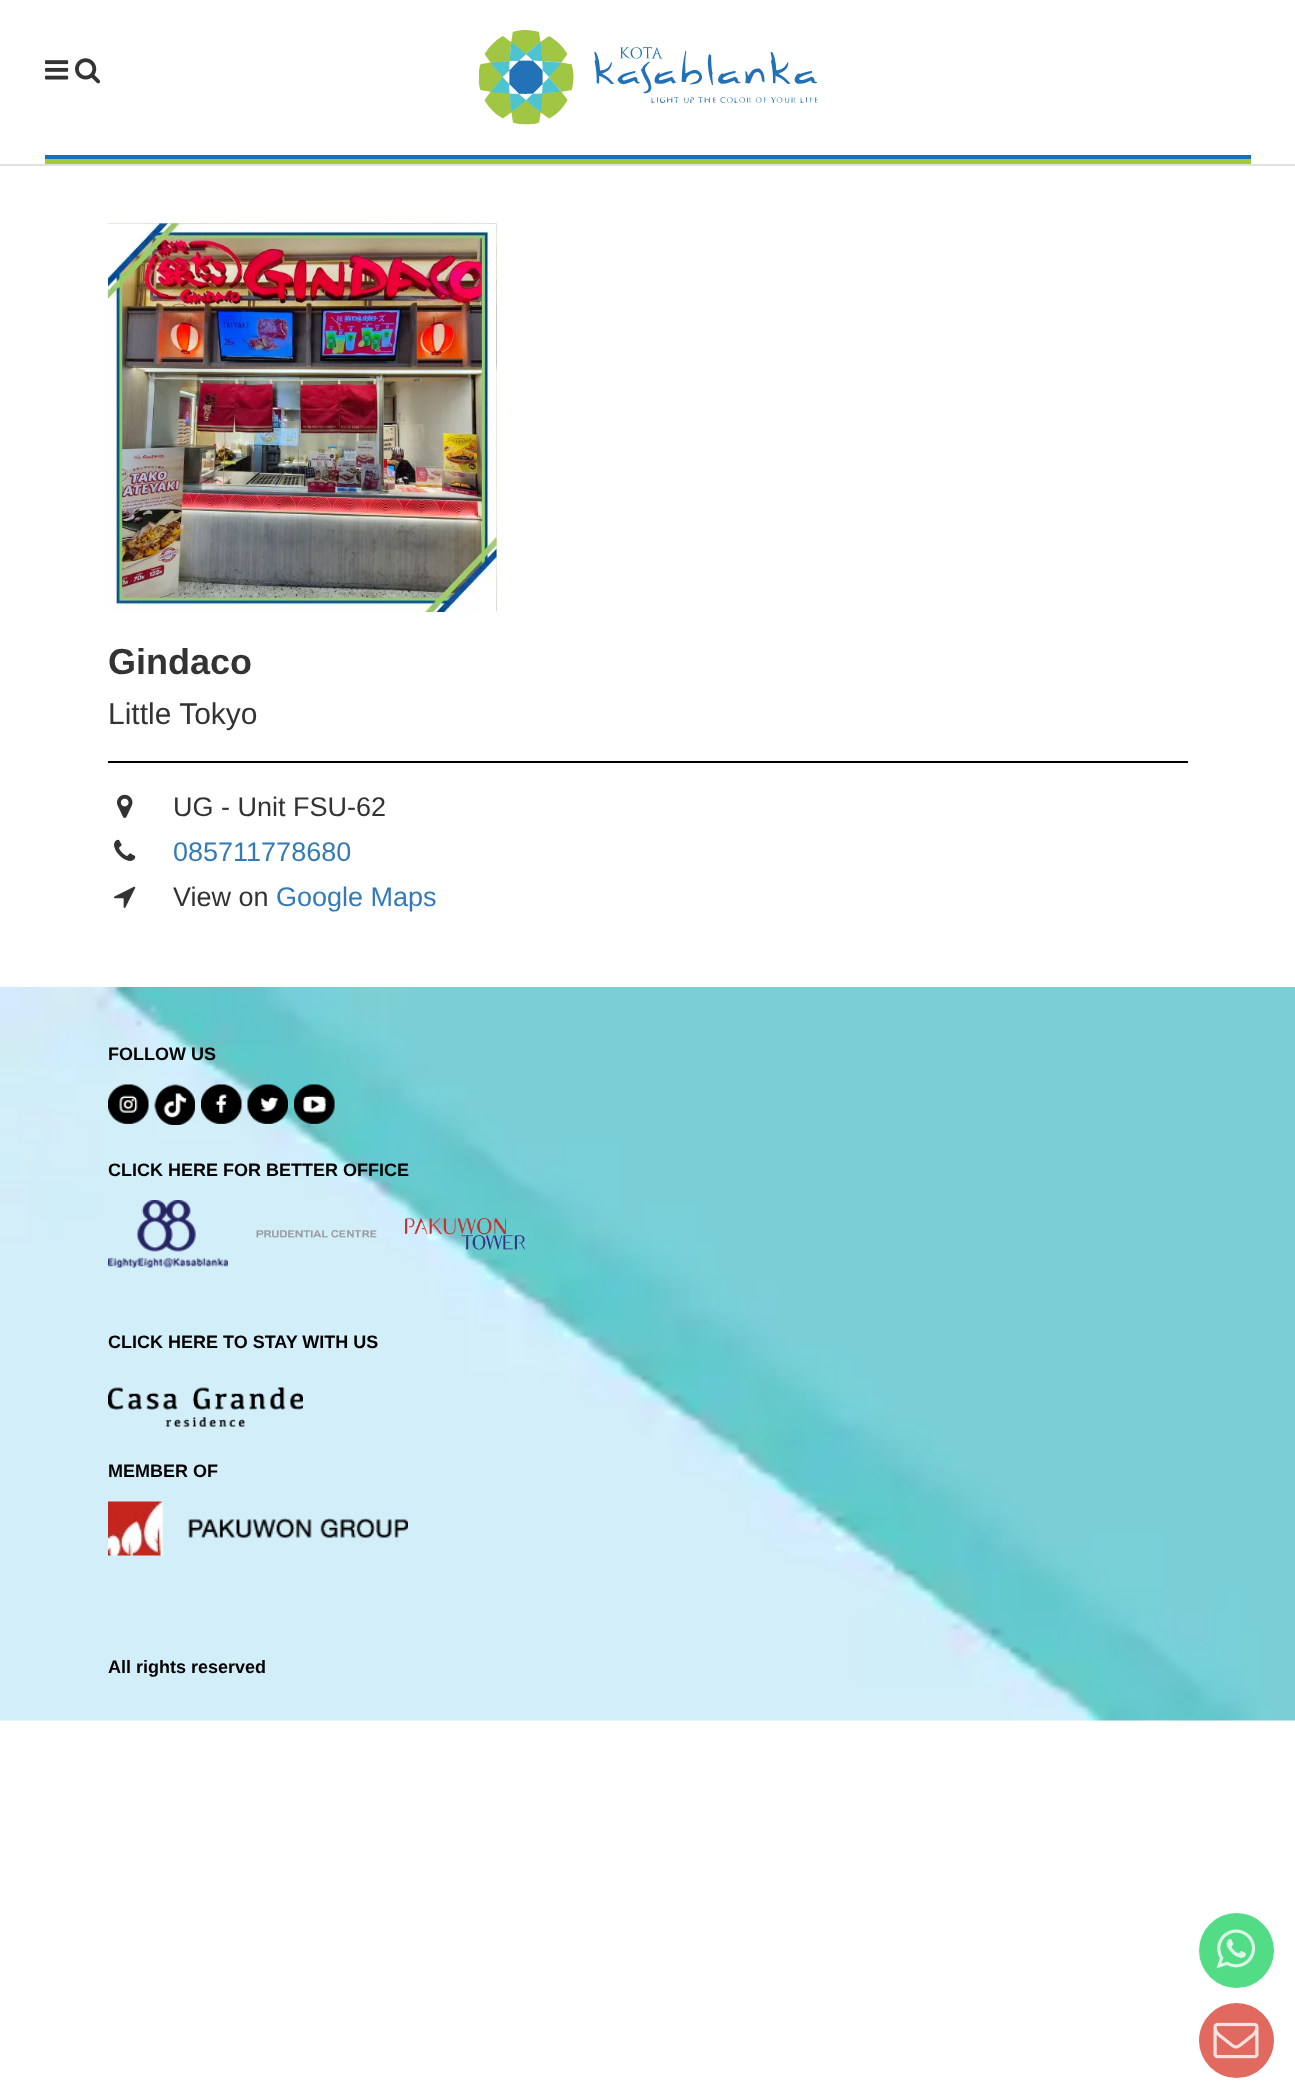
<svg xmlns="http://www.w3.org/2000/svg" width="1295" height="2100">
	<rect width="100%" height="100%" fill="#FFFFFF" />
	<rect x="0" y="164" width="1295" height="2" fill="#E0E0E0" />
	<image x="45" y="60" width="24" height="20" href="assets/img1.png" />
	<image x="75" y="58" width="26" height="26" href="assets/img2.png" />
	<image x="479" y="30" width="339" height="95" href="assets/img3.png" />
	<rect x="45" y="155" width="1206" height="4" fill="#1A6EBB" />
	<rect x="45" y="159" width="1206" height="5" fill="#A1C938" />
	<image x="108" y="223" width="389" height="389" href="assets/img4.png" />
	<image x="108" y="223" width="389" height="389" href="assets/img5.png" />
	<text x="108" y="674" font-family="Liberation Sans" font-size="36" font-weight="700" fill="#333333">Gindaco</text>
	<text x="108" y="724" font-family="Liberation Sans" font-size="30" fill="#333333">Little Tokyo</text>
	<rect x="108" y="761" width="1080" height="2" fill="#000000" />
	<image x="117" y="794" width="16" height="24" href="assets/img6.png" />
	<text x="173" y="816" font-family="Liberation Sans" font-size="27" fill="#333333">UG - Unit FSU-62</text>
	<image x="114" y="839" width="22" height="22" href="assets/img7.png" />
	<text x="173" y="861" font-family="Liberation Sans" font-size="27" fill="#337AB7">085711778680</text>
	<image x="114" y="886" width="22" height="22" href="assets/img8.png" />
	<text x="173" y="906" font-family="Liberation Sans" font-size="27" fill="#333333">View on</text>
	<text x="276" y="906" font-family="Liberation Sans" font-size="27" fill="#337AB7">Google Maps</text>
	<image x="0" y="987" width="1295" height="734" href="assets/img9.png" />
	<text x="108" y="1060" font-family="Liberation Sans" font-size="18" font-weight="700" fill="#000000">FOLLOW US</text>
	<image x="108" y="1084" width="41" height="40" href="assets/img10.png" />
	<image x="154" y="1084" width="41" height="41" href="assets/img11.png" />
	<image x="201" y="1084" width="41" height="40" href="assets/img12.png" />
	<image x="247" y="1084" width="41" height="40" href="assets/img13.png" />
	<image x="294" y="1084" width="41" height="40" href="assets/img14.png" />
	<text x="108" y="1176" font-family="Liberation Sans" font-size="18" font-weight="700" fill="#000000">CLICK HERE FOR BETTER OFFICE</text>
	<image x="108" y="1200" width="120" height="68" href="assets/img15.png" />
	<image x="256" y="1230" width="121" height="8" href="assets/img16.png" />
	<image x="405" y="1218" width="120" height="32" href="assets/img17.png" />
	<text x="108" y="1348" font-family="Liberation Sans" font-size="18" font-weight="700" fill="#000000">CLICK HERE TO STAY WITH US</text>
	<image x="108" y="1387" width="195" height="40" href="assets/img18.png" />
	<text x="108" y="1477" font-family="Liberation Sans" font-size="18" font-weight="700" fill="#000000">MEMBER OF</text>
	<image x="108" y="1501" width="300" height="55" href="assets/img19.png" />
	<text x="108" y="1673" font-family="Liberation Sans" font-size="18" font-weight="700" fill="#000000">All rights reserved</text>
	<circle cx="1236.5" cy="1950.5" r="37.5" fill="#51DC85" />
	<image x="1216" y="1929" width="40" height="40" href="assets/img20.png" />
	<circle cx="1236.5" cy="2040.5" r="37.5" fill="#E2695F" />
	<image x="1213" y="2022" width="46" height="37" href="assets/img21.png" />
</svg>
